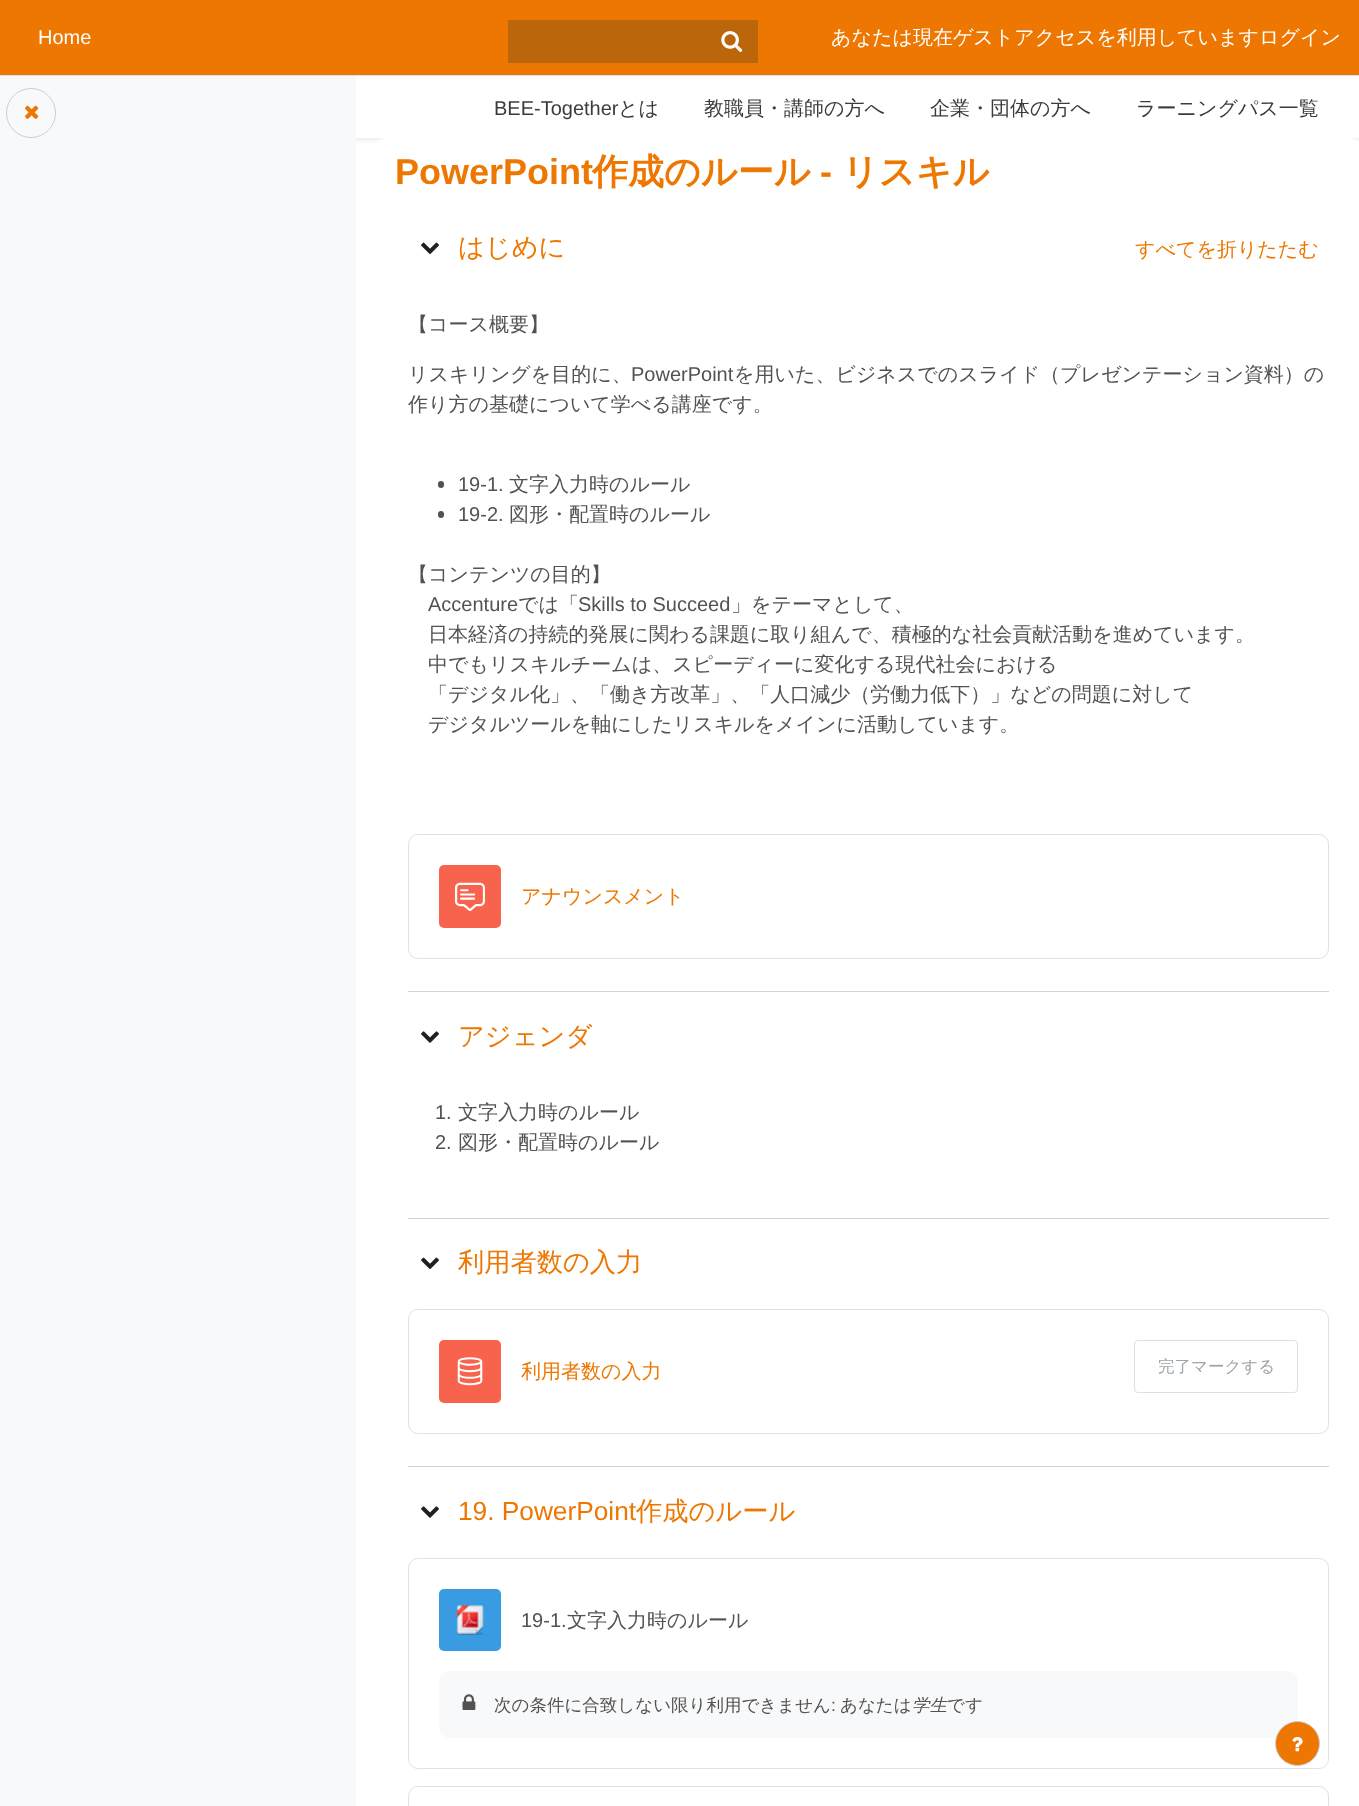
<svg xmlns="http://www.w3.org/2000/svg" width="1359" height="1806">
	<rect width="100%" height="100%" fill="#FFFFFF" />
	<rect x="0" y="78" width="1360" height="62" fill="#000000" fill-opacity="0.08" filter="blur(2.5px)" />
	<rect x="0" y="0" width="1359" height="75" fill="#ED7700" />
	<rect x="0" y="75" width="1359" height="1" fill="#DEE2E6" />
	<text x="38" y="44" font-family="Liberation Sans" font-size="20" fill="#FFFFFF">Home</text>
	<rect x="508" y="20" width="250" height="43" fill="#BC660B" />
	<image x="721" y="31" width="22" height="21" href="assets/img1.png" />
	<text x="831" y="44" font-family="WenQuanYi Zen Hei" font-size="20" font-weight="500" fill="#FFFFFF">あなたは現在ゲストアクセスを利用していますログイン</text>
	<rect x="0" y="76" width="356" height="1730" fill="#F8F9FA" />
	<circle cx="31" cy="113" r="24.5" fill="none" stroke="#CDCDCD" />
	<image x="25" y="105" width="14" height="14" href="assets/img2.png" />
	<rect x="356" y="76" width="1003" height="62" fill="#FFFFFF" />
	<text x="494" y="115" font-family="Liberation Sans" font-size="20" fill="#3B3B3B">BEE-Together</text>
	<g font-family="WenQuanYi Zen Hei" font-size="20" font-weight="500" fill="#3B3B3B">
		<text x="618" y="115">とは</text>
		<text x="704" y="115">教職員・講師の方へ</text>
		<text x="930" y="115">企業・団体の方へ</text>
		<text x="1136" y="115">ラーニングパス一覧</text>
	</g>
	<path d="M386 138H1350C1355.5 138 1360 142.5 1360 148V1806H376V148C376 142.5 380.5 138 386 138Z" fill="#FFFFFF" />
	<text x="395" y="184" font-family="Liberation Sans" font-size="36" font-weight="700" fill="#ED7700">PowerPoint</text>
	<text x="592" y="184" font-family="WenQuanYi Zen Hei" font-size="36" font-weight="700" fill="#ED7700">作成のルール</text>
	<text x="820" y="184" font-family="Liberation Sans" font-size="36" font-weight="700" fill="#ED7700">-</text>
	<text x="842" y="184" font-family="WenQuanYi Zen Hei" font-size="36" font-weight="700" fill="#ED7700">リスキル</text>
	<rect x="408" y="991" width="921" height="1" fill="#D4D4D4" />
	<image x="421" y="242" width="18" height="12" href="assets/img3.png" />
	<text x="458" y="256" font-family="WenQuanYi Zen Hei" font-size="26.25" font-weight="500" fill="#ED7700">はじめに</text>
	<text x="1135" y="256" font-family="WenQuanYi Zen Hei" font-size="20" font-weight="500" fill="#ED7700">すべてを折りたたむ</text>
	<g font-family="WenQuanYi Zen Hei" font-size="20" font-weight="500" fill="#545251">
		<text x="408" y="331">【コース概要】</text>
		<text x="408" y="381">リスキリングを目的に、</text>
	</g>
	<text x="631" y="381" font-family="Liberation Sans" font-size="20" fill="#545251">PowerPoint</text>
	<g font-family="WenQuanYi Zen Hei" font-size="20" font-weight="500" fill="#545251">
		<text x="734" y="381">を用いた、ビジネスでのスライド（プレゼンテーション資料）の</text>
		<text x="408" y="411">作り方の基礎について学べる講座です。</text>
	</g>
	<rect x="438" y="481" width="6" height="7" rx="3" fill="#545251" />
	<text x="458" y="491" font-family="Liberation Sans" font-size="20" fill="#545251">19-1.</text>
	<text x="509" y="491" font-family="WenQuanYi Zen Hei" font-size="20" font-weight="500" fill="#545251">文字入力時のルール</text>
	<rect x="438" y="511" width="6" height="7" rx="3" fill="#545251" />
	<text x="458" y="521" font-family="Liberation Sans" font-size="20" fill="#545251">19-2.</text>
	<g font-family="WenQuanYi Zen Hei" font-size="20" font-weight="500" fill="#545251">
		<text x="509" y="521">図形・配置時のルール</text>
		<text x="408" y="581">【コンテンツの目的】</text>
	</g>
	<text x="428" y="611" font-family="Liberation Sans" font-size="20" fill="#545251">Accenture</text>
	<text x="518" y="611" font-family="WenQuanYi Zen Hei" font-size="20" font-weight="500" fill="#545251">では「</text>
	<text x="578" y="611" font-family="Liberation Sans" font-size="20" fill="#545251">Skills to Succeed</text>
	<g font-family="WenQuanYi Zen Hei" font-size="20" font-weight="500" fill="#545251">
		<text x="731" y="611">」をテーマとして、</text>
		<text x="428" y="641">日本経済の持続的発展に関わる課題に取り組んで、積極的な社会貢献活動を進めています。</text>
		<text x="428" y="671">中でもリスキルチームは、スピーディーに変化する現代社会における</text>
		<text x="428" y="701">「デジタル化」、「働き方改革」、「人口減少（労働力低下）」などの問題に対して</text>
		<text x="428" y="731">デジタルツールを軸にしたリスキルをメインに活動しています。</text>
	</g>
	<rect x="408.5" y="834.5" width="920" height="124" rx="9.5" fill="none" stroke="#DEE2E6" />
	<rect x="439" y="865" width="62" height="63" rx="5" fill="#F7634D" />
	<image x="455" y="882" width="30" height="29" href="assets/img4.png" />
	<text x="521" y="903" font-family="WenQuanYi Zen Hei" font-size="20" font-weight="500" fill="#ED7700">アナウンスメント</text>
	<rect x="408" y="1218" width="921" height="1" fill="#D4D4D4" />
	<image x="421" y="1031" width="18" height="12" href="assets/img5.png" />
	<text x="458" y="1045" font-family="WenQuanYi Zen Hei" font-size="26.25" font-weight="500" fill="#ED7700">アジェンダ</text>
	<text x="435" y="1119" font-family="Liberation Sans" font-size="20" fill="#545251">1.</text>
	<text x="458" y="1119" font-family="WenQuanYi Zen Hei" font-size="20" font-weight="500" fill="#545251">文字入力時のルール</text>
	<text x="435" y="1149" font-family="Liberation Sans" font-size="20" fill="#545251">2.</text>
	<text x="458" y="1149" font-family="WenQuanYi Zen Hei" font-size="20" font-weight="500" fill="#545251">図形・配置時のルール</text>
	<rect x="408" y="1466" width="921" height="1" fill="#D4D4D4" />
	<image x="421" y="1257" width="18" height="12" href="assets/img3.png" />
	<text x="458" y="1271" font-family="WenQuanYi Zen Hei" font-size="26.25" font-weight="500" fill="#ED7700">利用者数の入力</text>
	<rect x="408.5" y="1309.5" width="920" height="124" rx="9.5" fill="none" stroke="#DEE2E6" />
	<rect x="439" y="1340" width="62" height="63" rx="5" fill="#F7634D" />
	<image x="457" y="1357" width="26" height="29" href="assets/img6.png" />
	<text x="521" y="1378" font-family="WenQuanYi Zen Hei" font-size="20" font-weight="500" fill="#ED7700">利用者数の入力</text>
	<rect x="1134.5" y="1340.5" width="163" height="52" rx="3.5" fill="none" stroke="#DFDFDF" />
	<text x="1158" y="1372" font-family="WenQuanYi Zen Hei" font-size="16.5" font-weight="500" fill="#9EA4A9">完了マークする</text>
	<image x="421" y="1506" width="18" height="12" href="assets/img5.png" />
	<text x="458" y="1520" font-family="Liberation Sans" font-size="26.25" fill="#ED7700">19. PowerPoint</text>
	<text x="636" y="1520" font-family="WenQuanYi Zen Hei" font-size="26.25" font-weight="500" fill="#ED7700">作成のルール</text>
	<rect x="408.5" y="1558.5" width="920" height="210" rx="9.5" fill="none" stroke="#DEE2E6" />
	<rect x="439" y="1589" width="62" height="62" rx="5" fill="#399BE2" />
	<image x="456" y="1605" width="28" height="30" href="assets/img7.png" />
	<text x="521" y="1627" font-family="Liberation Sans" font-size="20" fill="#545251">19-1.</text>
	<text x="567" y="1627" font-family="WenQuanYi Zen Hei" font-size="20" font-weight="500" fill="#545251">文字入力時のルール</text>
	<rect x="439" y="1671" width="859" height="67" rx="10" fill="#F8F9FA" />
	<image x="462" y="1694" width="14" height="16" href="assets/img8.png" />
	<text x="494" y="1711" font-family="WenQuanYi Zen Hei" font-size="17.5" font-weight="500" fill="#545251">次の条件に合致しない限り利用できません</text>
	<text x="831" y="1711" font-family="Liberation Sans" font-size="17.5" fill="#545251">:</text>
	<text x="840" y="1711" font-family="WenQuanYi Zen Hei" font-size="17.5" font-weight="500" fill="#545251">あなたは</text>
	<text x="912" y="1711" font-family="WenQuanYi Zen Hei" font-size="17.5" font-weight="500" font-style="italic" fill="#545251">学生</text>
	<text x="947" y="1711" font-family="WenQuanYi Zen Hei" font-size="17.5" font-weight="500" fill="#545251">です</text>
	<rect x="408.5" y="1786.5" width="920" height="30" rx="9.5" fill="none" stroke="#DEE2E6" />
	<circle cx="1297.5" cy="1743.5" r="22" fill="#ED7700" stroke="#CDCDCD" />
	<image x="1292" y="1737" width="11" height="15" href="assets/img9.png" />
</svg>
